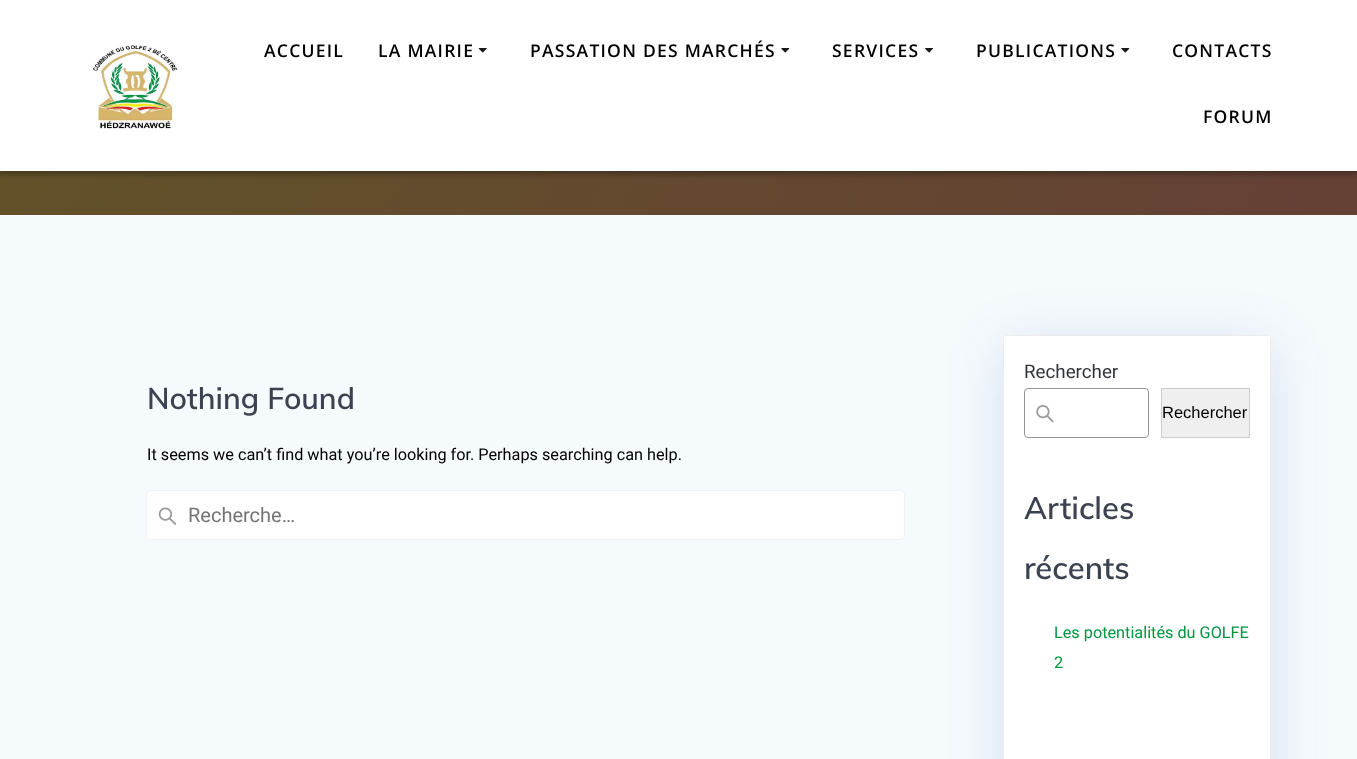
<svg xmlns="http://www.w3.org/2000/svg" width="1357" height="759">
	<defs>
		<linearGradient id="g1" gradientUnits="userSpaceOnUse" x1="93" y1="-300" x2="1264" y2="376"><stop offset="0" stop-color="#625428" /><stop offset="1" stop-color="#654035" /></linearGradient>
	</defs>
	<rect width="100%" height="100%" fill="#FFFFFF" />
	<rect x="0" y="171" width="1357" height="44" fill="url(#g1)" />
	<rect x="-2" y="-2" width="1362" height="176" fill="#000000" fill-opacity="0.33" filter="blur(3px)" />
	<rect x="0" y="0" width="1357" height="171" fill="#FFFFFF" />
	<image x="92" y="45" width="86" height="85" href="assets/img1.png" />
	<g font-family="Open Sans" font-size="17.5" font-weight="600" letter-spacing="1.25" fill="#000000">
		<text x="264" y="57">ACCUEIL</text>
		<text x="378" y="57">LA MAIRIE</text>
	</g>
	<image x="478" y="48" width="9" height="5" href="assets/img2.png" />
	<text x="530" y="57" font-family="Open Sans" font-size="17.5" font-weight="600" letter-spacing="1.25" fill="#000000">PASSATION DES MARCHÉS</text>
	<image x="781" y="48" width="9" height="5" href="assets/img3.png" />
	<text x="832" y="57" font-family="Open Sans" font-size="17.5" font-weight="600" letter-spacing="1.25" fill="#000000">SERVICES</text>
	<image x="925" y="48" width="8" height="5" href="assets/img4.png" />
	<text x="976" y="57" font-family="Open Sans" font-size="17.5" font-weight="600" letter-spacing="1.25" fill="#000000">PUBLICATIONS</text>
	<image x="1121" y="48" width="9" height="5" href="assets/img3.png" />
	<g font-family="Open Sans" font-size="17.5" font-weight="600" letter-spacing="1.25" fill="#000000">
		<text x="1172" y="57">CONTACTS</text>
		<text x="1203" y="123">FORUM</text>
	</g>
	<rect x="0" y="215" width="1357" height="544" fill="#F5FAFD" />
	<text x="147" y="409" font-family="Muli" font-size="30" font-weight="600" fill="#3C424F">Nothing Found</text>
	<text x="147" y="460" font-family="Roboto" font-size="16.25" fill="#000000">It seems we can’t find what you’re looking for. Perhaps searching can help.</text>
	<rect x="146" y="490" width="759" height="50" rx="4" fill="#FFFFFF" />
	<image x="158" y="507" width="19" height="18" href="assets/img5.png" />
	<rect x="146.5" y="490.5" width="758" height="49" rx="3.5" fill="none" stroke="#F1F1F1" />
	<text x="188" y="522" font-family="Roboto" font-size="20" fill="#757575">Recherche…</text>
	<rect x="1003" y="346" width="268" height="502" rx="5" fill="#234598" fill-opacity="0.15" filter="blur(28px)" />
	<rect x="1003.5" y="335.5" width="267" height="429" rx="4.5" fill="#FFFFFF" stroke="#ECECEC" />
	<rect x="1004" y="336" width="266" height="3" fill="#FFFFFF" />
	<text x="1024" y="378" font-family="Roboto" font-size="18.75" fill="#313439">Rechercher</text>
	<image x="1036" y="405" width="18" height="18" href="assets/img6.png" />
	<rect x="1024.5" y="388.5" width="124" height="49" rx="3.5" fill="none" stroke="#949494" />
	<rect x="1161.5" y="388.5" width="88" height="49" fill="#EFEFEF" stroke="#CCCCCC" />
	<text x="1162" y="418" font-family="Liberation Sans" font-size="16.5" fill="#000000">Rechercher</text>
	<g font-family="Muli" font-size="31" font-weight="600" fill="#3C424F">
		<text x="1024" y="519">Articles</text>
		<text x="1024" y="579">récents</text>
	</g>
	<g font-family="Roboto" font-size="16.25" fill="#039540">
		<text x="1054" y="638">Les potentialités du GOLFE</text>
		<text x="1054" y="668">2</text>
	</g>
</svg>
